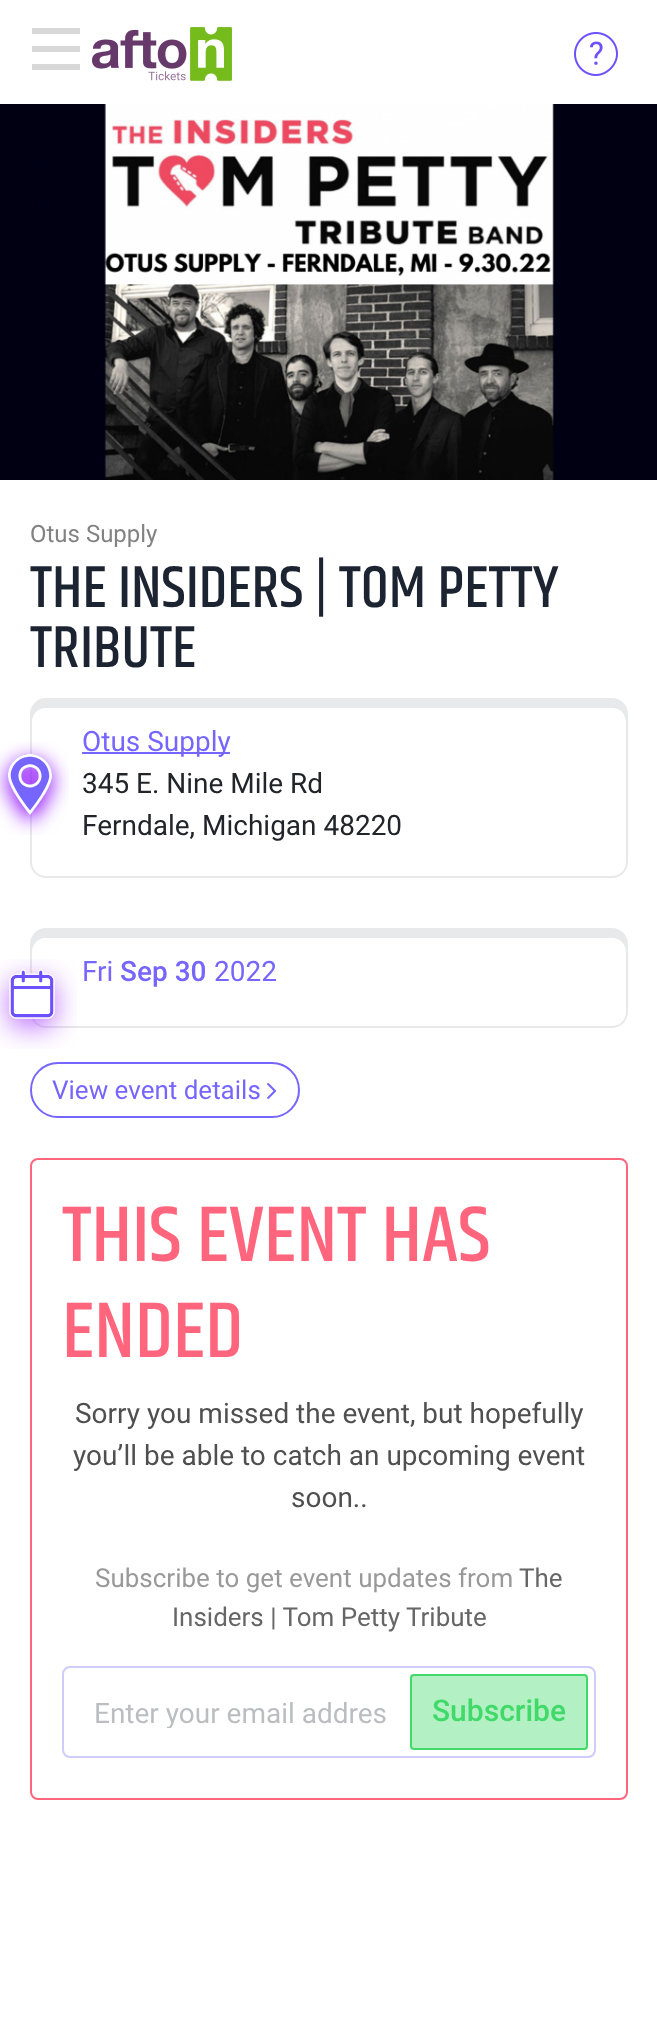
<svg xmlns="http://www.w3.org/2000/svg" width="657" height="2028">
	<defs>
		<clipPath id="clip1"><rect x="94" y="1696" width="294" height="32" /></clipPath>
	</defs>
	<rect width="100%" height="100%" fill="#FFFFFF" />
	<rect x="32" y="28" width="48" height="6" fill="#D8D8D8" />
	<rect x="32" y="46" width="48" height="6" fill="#D8D8D8" />
	<rect x="32" y="64" width="48" height="6" fill="#D8D8D8" />
	<image x="92" y="27" width="140" height="54" href="assets/img1.png" />
	<image x="574" y="32" width="44" height="44" href="assets/img2.png" />
	<image x="0" y="104" width="657" height="376" href="assets/img3.png" />
	<text x="30" y="542" font-family="Roboto" font-size="24" fill="#828282">Otus Supply</text>
	<g font-family="Khand" font-size="60" font-weight="500" fill="#1C2331">
		<text x="30" y="607">THE INSIDERS | TOM PETTY</text>
		<text x="30" y="667">TRIBUTE</text>
	</g>
	<path d="M46 708H612C620 708 626 714 626 722V714C626 706 620 700 612 700H46C38 700 32 706 32 714V722C32 714 38 708 46 708Z" fill="#E8E9EA" />
	<rect x="31" y="699" width="596" height="178" rx="15" fill="none" stroke="#1C2331" stroke-opacity="0.1" stroke-width="2" />
	<image x="0" y="742" width="69" height="93" href="assets/img4.png" />
	<rect x="82" y="752" width="148" height="2" fill="#7666FF" />
	<text x="82" y="751" font-family="Roboto" font-size="28" fill="#7666FF">Otus Supply</text>
	<g font-family="Roboto" font-size="28" fill="#212529">
		<text x="82" y="793">345 E. Nine Mile Rd</text>
		<text x="82" y="835">Ferndale, Michigan 48220</text>
	</g>
	<path d="M46 938H612C620 938 626 944 626 952V944C626 936 620 930 612 930H46C38 930 32 936 32 944V952C32 944 38 938 46 938Z" fill="#E8E9EA" />
	<rect x="31" y="929" width="596" height="98" rx="15" fill="none" stroke="#1C2331" stroke-opacity="0.1" stroke-width="2" />
	<image x="0" y="959" width="77" height="90" href="assets/img5.png" />
	<text x="82" y="981" font-family="Roboto" font-size="28" fill="#7666FF">Fri</text>
	<text x="120" y="981" font-family="Roboto" font-size="28" font-weight="500" fill="#7666FF">Sep 30</text>
	<text x="214" y="981" font-family="Roboto" font-size="28" fill="#7666FF">2022</text>
	<rect x="31" y="1063" width="268" height="54" rx="27" fill="none" stroke="#7666FF" stroke-width="2" />
	<text x="52" y="1099" font-family="Roboto" font-size="26" fill="#7666FF">View event details</text>
	<image x="267" y="1083" width="10" height="16" href="assets/img6.png" />
	<rect x="31" y="1159" width="596" height="640" rx="7" fill="none" stroke="#FF667D" stroke-width="2" />
	<g font-family="Khand" font-size="80" font-weight="500" fill="#FF667D">
		<text x="62" y="1261">THIS EVENT HAS</text>
		<text x="62" y="1357">ENDED</text>
	</g>
	<g font-family="Roboto" font-size="28" fill="#4F4F4F">
		<text x="75" y="1423">Sorry you missed the event, but hopefully</text>
		<text x="73" y="1465">you’ll be able to catch an upcoming event</text>
		<text x="291" y="1507">soon..</text>
	</g>
	<text x="95" y="1587" font-family="Roboto" font-size="26" fill="#999999">Subscribe to get event updates from</text>
	<g font-family="Roboto" font-size="26" fill="#666666">
		<text x="519" y="1587">The</text>
		<text x="172" y="1626">Insiders | Tom Petty Tribute</text>
	</g>
	<rect x="63" y="1667" width="532" height="90" rx="7" fill="none" stroke="#D0CCFA" stroke-width="2" />
	<g clip-path="url(#clip1)">
		<text x="94" y="1723" font-family="Roboto" font-size="28" fill="#BBBDC1">Enter your email addres</text>
	</g>
	<rect x="411" y="1675" width="176" height="74" rx="3" fill="#B3F0C3" stroke="#41D96A" stroke-width="2" />
	<text x="432" y="1721" font-family="Roboto" font-size="30" font-weight="500" fill="#41D96A">Subscribe</text>
</svg>
